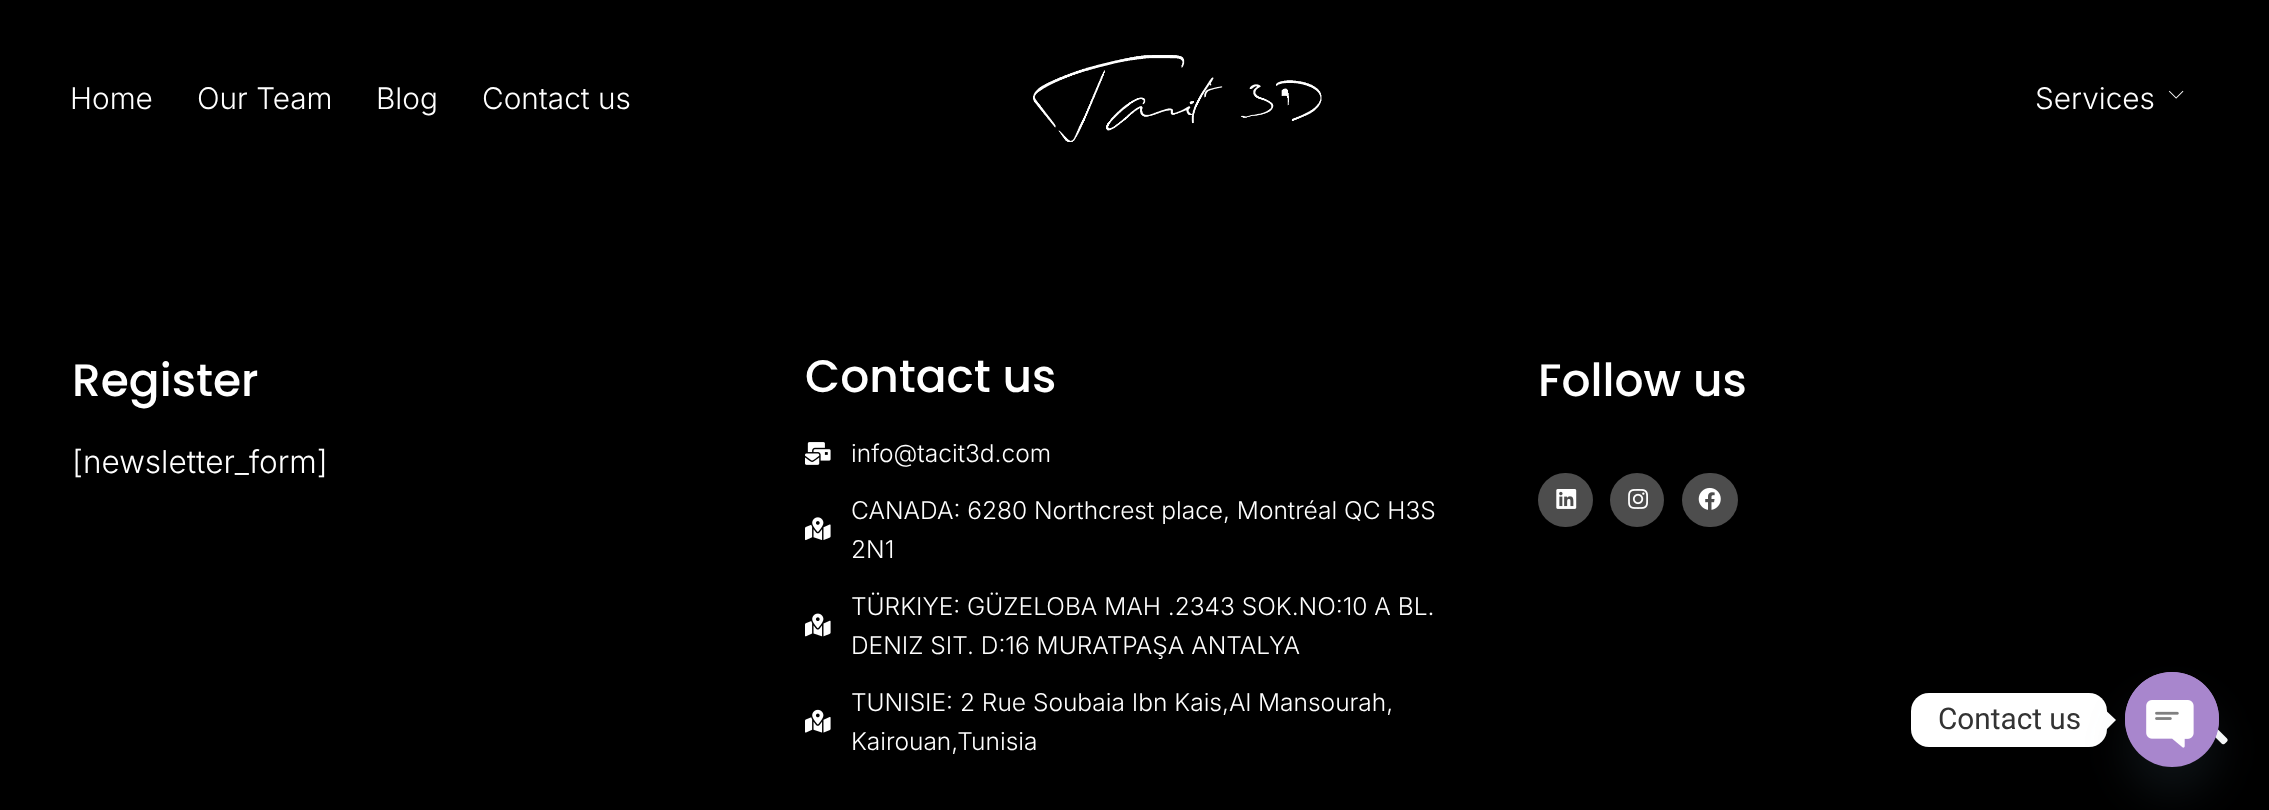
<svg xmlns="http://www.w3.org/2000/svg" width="2269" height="810">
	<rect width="100%" height="100%" fill="#000000" />
	<g font-family="Inter" font-size="29.75" font-weight="300" fill="#FFFFFF">
		<text x="70" y="109">Home</text>
		<text x="197" y="109">Our Team</text>
		<text x="376" y="109">Blog</text>
		<text x="482" y="109">Contact us</text>
	</g>
	<image x="1033" y="55" width="289" height="87" href="assets/img1.png" />
	<text x="2035" y="109" font-family="Inter" font-size="29.75" font-weight="300" fill="#FFFFFF">Services</text>
	<image x="2168" y="90" width="16" height="9" href="assets/img2.png" />
	<text x="72" y="396" font-family="Poppins" font-size="45.5" font-weight="500" fill="#FFFFFF">Register</text>
	<text x="72" y="473" font-family="Inter" font-size="31.5" font-weight="300" fill="#FFFFFF">[newsletter_form]</text>
	<text x="805" y="392" font-family="Poppins" font-size="45.5" font-weight="500" fill="#FFFFFF">Contact us</text>
	<image x="805" y="442" width="26" height="23" href="assets/img3.png" />
	<text x="851" y="462" font-family="Inter" font-size="24.5" font-weight="300" fill="#FFFFFF">info@tacit3d.com</text>
	<image x="805" y="517" width="26" height="24" href="assets/img4.png" />
	<g font-family="Inter" font-size="24.5" font-weight="300" fill="#FFFFFF">
		<text x="851" y="519">CANADA: 6280 Northcrest place, Montréal QC H3S</text>
		<text x="851" y="558">2N1</text>
	</g>
	<image x="805" y="613" width="26" height="24" href="assets/img5.png" />
	<g font-family="Inter" font-size="24.5" font-weight="300" fill="#FFFFFF">
		<text x="851" y="615">TÜRKIYE: GÜZELOBA MAH .2343 SOK.NO:10 A BL.</text>
		<text x="851" y="654">DENIZ SIT. D:16 MURATPAŞA ANTALYA</text>
	</g>
	<image x="805" y="709" width="26" height="24" href="assets/img6.png" />
	<g font-family="Inter" font-size="24.5" font-weight="300" fill="#FFFFFF">
		<text x="851" y="711">TUNISIE: 2 Rue Soubaia Ibn Kais,Al Mansourah,</text>
		<text x="851" y="750">Kairouan,Tunisia</text>
	</g>
	<text x="1538" y="396" font-family="Poppins" font-size="45.5" font-weight="500" fill="#FFFFFF">Follow us</text>
	<rect x="1538" y="473" width="55" height="54" rx="27" fill="#4D4D4D" />
	<image x="1556" y="489" width="21" height="20" href="assets/img7.png" />
	<circle cx="1637" cy="500" r="27" fill="#4D4D4D" />
	<image x="1628" y="489" width="20" height="20" href="assets/img8.png" />
	<rect x="1682" y="473" width="56" height="54" rx="27" fill="#4D4D4D" />
	<image x="1698" y="487" width="23" height="23" href="assets/img9.png" />
	<image x="2215" y="729" width="13" height="16" href="assets/img10.png" />
	<rect x="1911" y="693" width="196" height="54" rx="18" fill="#FFFFFF" />
	<text x="1938" y="729" font-family="Roboto" font-size="29.75" fill="#333333">Contact us</text>
	<path d="M2107 729V711.5L2116 720Z" fill="#FFFFFF" />
	<rect x="2125" y="700" width="94" height="95" rx="47" fill="#49687E" fill-opacity="0.16" filter="blur(21px)" />
	<rect x="2125" y="672" width="94" height="95" rx="47" fill="#A886CD" />
	<image x="2125" y="672" width="94" height="76" href="assets/img11.png" />
</svg>
